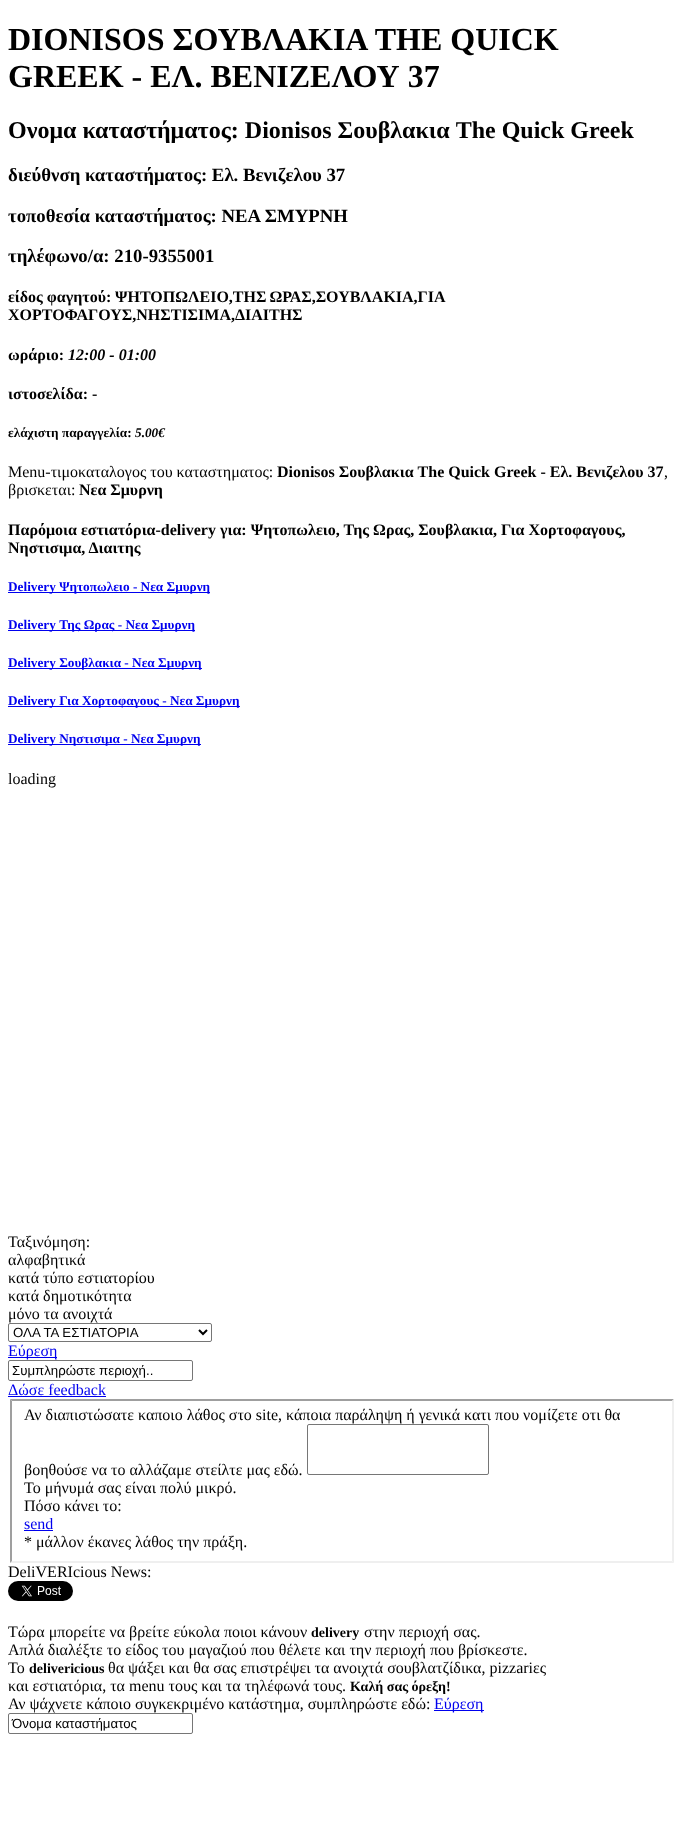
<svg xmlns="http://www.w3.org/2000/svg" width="684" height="1845">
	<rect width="100%" height="100%" fill="#FFFFFF" />
	<g font-family="Liberation Serif" font-size="32" font-weight="700" fill="#000000">
		<text x="8" y="50">DIONISOS ΣΟΥΒΛΑΚΙΑ THE QUICK</text>
		<text x="8" y="87">GREEK - ΕΛ. ΒΕΝΙΖΕΛΟΥ 37</text>
	</g>
	<text x="8" y="138" font-family="Liberation Serif" font-size="24" font-weight="700" fill="#000000">Ονομα καταστήματος: Dionisos Σουβλακια The Quick Greek</text>
	<g font-family="Liberation Serif" font-size="18.75" font-weight="700" fill="#000000">
		<text x="8" y="181">διεύθνση καταστήματος: Ελ. Βενιζελου 37</text>
		<text x="8" y="222">τοποθεσία καταστήματος: ΝΕΑ ΣΜΥΡΝΗ</text>
		<text x="8" y="262">τηλέφωνο/α: 210-9355001</text>
	</g>
	<g font-family="Liberation Serif" font-size="16" font-weight="700" fill="#000000">
		<text x="8" y="302">είδος φαγητού:</text>
		<text x="115" y="302" word-spacing="-1">ΨΗΤΟΠΩΛΕΙΟ,ΤΗΣ ΩΡΑΣ,ΣΟΥΒΛΑΚΙΑ,ΓΙΑ</text>
		<text x="8" y="320">ΧΟΡΤΟΦΑΓΟΥΣ,ΝΗΣΤΙΣΙΜΑ,ΔΙΑΙΤΗΣ</text>
		<text x="8" y="360">ωράριο:</text>
	</g>
	<text x="68" y="360" font-family="Liberation Serif" font-size="16" font-weight="700" font-style="italic" fill="#000000">12:00 - 01:00</text>
	<text x="8" y="399" font-family="Liberation Serif" font-size="16" font-weight="700" fill="#000000">ιστοσελίδα: -</text>
	<text x="8" y="437" font-family="Liberation Serif" font-size="13.25" font-weight="700" fill="#000000">ελάχιστη παραγγελία:</text>
	<text x="135" y="437" font-family="Liberation Serif" font-size="13.25" font-weight="700" font-style="italic" fill="#000000">5.00€</text>
	<text x="8" y="477" font-family="Liberation Serif" font-size="16" fill="#000000">Menu-τιμοκαταλογος του καταστηματος:</text>
	<text x="277" y="477" font-family="Liberation Serif" font-size="16" font-weight="700" fill="#000000">Dionisos Σουβλακια The Quick Greek - Ελ. Βενιζελου 37</text>
	<g font-family="Liberation Serif" font-size="16" fill="#000000">
		<text x="664" y="477">,</text>
		<text x="8" y="495">βρισκεται:</text>
	</g>
	<g font-family="Liberation Serif" font-size="16" font-weight="700" fill="#000000">
		<text x="79" y="495">Νεα Σμυρνη</text>
		<text x="8" y="535">Παρόμοια εστιατόρια-delivery για: Ψητοπωλειο, Της Ωρας, Σουβλακια, Για Χορτοφαγους,</text>
		<text x="8" y="553">Νηστισιμα, Διαιτης</text>
	</g>
	<rect x="8" y="592" width="202" height="1" fill="#0000EE" />
	<text x="8" y="591" font-family="Liberation Serif" font-size="13.25" font-weight="700" fill="#0000EE">Delivery Ψητοπωλειο - Νεα Σμυρνη</text>
	<rect x="8" y="630" width="187" height="1" fill="#0000EE" />
	<text x="8" y="629" font-family="Liberation Serif" font-size="13.25" font-weight="700" fill="#0000EE">Delivery Της Ωρας - Νεα Σμυρνη</text>
	<rect x="8" y="668" width="194" height="1" fill="#0000EE" />
	<text x="8" y="667" font-family="Liberation Serif" font-size="13.25" font-weight="700" fill="#0000EE">Delivery Σουβλακια - Νεα Σμυρνη</text>
	<rect x="8" y="706" width="232" height="1" fill="#0000EE" />
	<text x="8" y="705" font-family="Liberation Serif" font-size="13.25" font-weight="700" fill="#0000EE">Delivery Για Χορτοφαγους - Νεα Σμυρνη</text>
	<rect x="8" y="744" width="193" height="1" fill="#0000EE" />
	<text x="8" y="743" font-family="Liberation Serif" font-size="13.25" font-weight="700" fill="#0000EE">Delivery Νηστισιμα - Νεα Σμυρνη</text>
	<g font-family="Liberation Serif" font-size="16" fill="#000000">
		<text x="8" y="784">loading</text>
		<text x="8" y="1247">Ταξινόμηση:</text>
		<text x="8" y="1265">αλφαβητικά</text>
		<text x="8" y="1283">κατά τύπο εστιατορίου</text>
		<text x="8" y="1301">κατά δημοτικότητα</text>
		<text x="8" y="1319">μόνο τα ανοιχτά</text>
	</g>
	<rect x="8.5" y="1323.5" width="203" height="18" rx="1.5" fill="none" stroke="#767676" />
	<path d="M199 1330L203 1334L207 1330" fill="none" stroke="#000000" stroke-width="2" />
	<text x="13" y="1337" font-family="Liberation Sans" font-size="13.25" fill="#000000">ΟΛΑ ΤΑ ΕΣΤΙΑΤΟΡΙΑ</text>
	<rect x="8" y="1357" width="49" height="1" fill="#0000EE" />
	<text x="8" y="1356" font-family="Liberation Serif" font-size="16" fill="#0000EE">Εύρεση</text>
	<rect x="8.5" y="1360.5" width="184" height="20" rx="1.5" fill="none" stroke="#767676" />
	<text x="12" y="1375" font-family="Liberation Sans" font-size="13.25" fill="#000000">Συμπληρώστε περιοχή..</text>
	<text x="8" y="1395" font-family="Liberation Serif" font-size="16" fill="#0000EE">Δώσε feedback</text>
	<rect x="8" y="1396" width="98" height="1" fill="#0000EE" />
	<path d="M10 1399H674L672 1401H12Z" fill="#9F9F9F" />
	<path d="M674 1399V1563L672 1561V1401Z" fill="#EFEFEF" />
	<path d="M674 1563H10L12 1561H672Z" fill="#EFEFEF" />
	<path d="M10 1563V1399L12 1401V1561Z" fill="#9F9F9F" />
	<g font-family="Liberation Serif" font-size="16" fill="#000000">
		<text x="24" y="1420">Αν διαπιστώσατε καποιο λάθος στο site, κάποια παράληψη ή γενικά κατι που νομίζετε οτι θα</text>
		<text x="24" y="1475">βοηθούσε να το αλλάζαμε στείλτε μας εδώ.</text>
	</g>
	<rect x="307.5" y="1424.5" width="181" height="50" rx="1.5" fill="none" stroke="#767676" />
	<g font-family="Liberation Serif" font-size="16" fill="#000000">
		<text x="24" y="1493">Το μήνυμά σας είναι πολύ μικρό.</text>
		<text x="24" y="1511">Πόσο κάνει το:</text>
	</g>
	<text x="24" y="1529" font-family="Liberation Serif" font-size="16" fill="#0000EE">send</text>
	<rect x="24" y="1530" width="29" height="1" fill="#0000EE" />
	<g font-family="Liberation Serif" font-size="16" fill="#000000">
		<text x="24" y="1547">* μάλλον έκανες λάθος την πράξη.</text>
		<text x="8" y="1577">DeliVERIcious News:</text>
	</g>
	<image x="8" y="1581" width="65" height="20" href="assets/img1.png" />
	<text x="8" y="1637" font-family="Liberation Serif" font-size="16" fill="#000000">Τώρα μπορείτε να βρείτε εύκολα ποιοι κάνουν</text>
	<text x="311" y="1637" font-family="Liberation Serif" font-size="14" font-weight="700" fill="#000000">delivery</text>
	<g font-family="Liberation Serif" font-size="16" fill="#000000">
		<text x="364" y="1637">στην περιοχή σας.</text>
		<text x="8" y="1655">Απλά διαλέξτε το είδος του μαγαζιού που θέλετε και την περιοχή που βρίσκεστε.</text>
		<text x="8" y="1673">Το</text>
	</g>
	<text x="29" y="1673" font-family="Liberation Serif" font-size="14" font-weight="700" fill="#000000">delivericious</text>
	<g font-family="Liberation Serif" font-size="16" fill="#000000">
		<text x="108" y="1673">θα ψάξει και θα σας επιστρέψει τα ανοιχτά σουβλατζίδικα, pizzariες</text>
		<text x="8" y="1691">και εστιατόρια, τα menu τους και τα τηλέφωνά τους.</text>
	</g>
	<text x="350" y="1691" font-family="Liberation Serif" font-size="14" font-weight="700" fill="#000000">Καλή σας όρεξη!</text>
	<text x="8" y="1709" font-family="Liberation Serif" font-size="16" fill="#000000">Αν ψάχνετε κάποιο συγκεκριμένο κατάστημα, συμπληρώστε εδώ:</text>
	<rect x="434" y="1710" width="50" height="1" fill="#0000EE" />
	<text x="434" y="1709" font-family="Liberation Serif" font-size="16" fill="#0000EE">Εύρεση</text>
	<rect x="8.5" y="1713.5" width="184" height="20" rx="1.5" fill="none" stroke="#767676" />
	<text x="12" y="1728" font-family="Liberation Sans" font-size="13.25" fill="#000000">Όνομα καταστήματος</text>
</svg>
